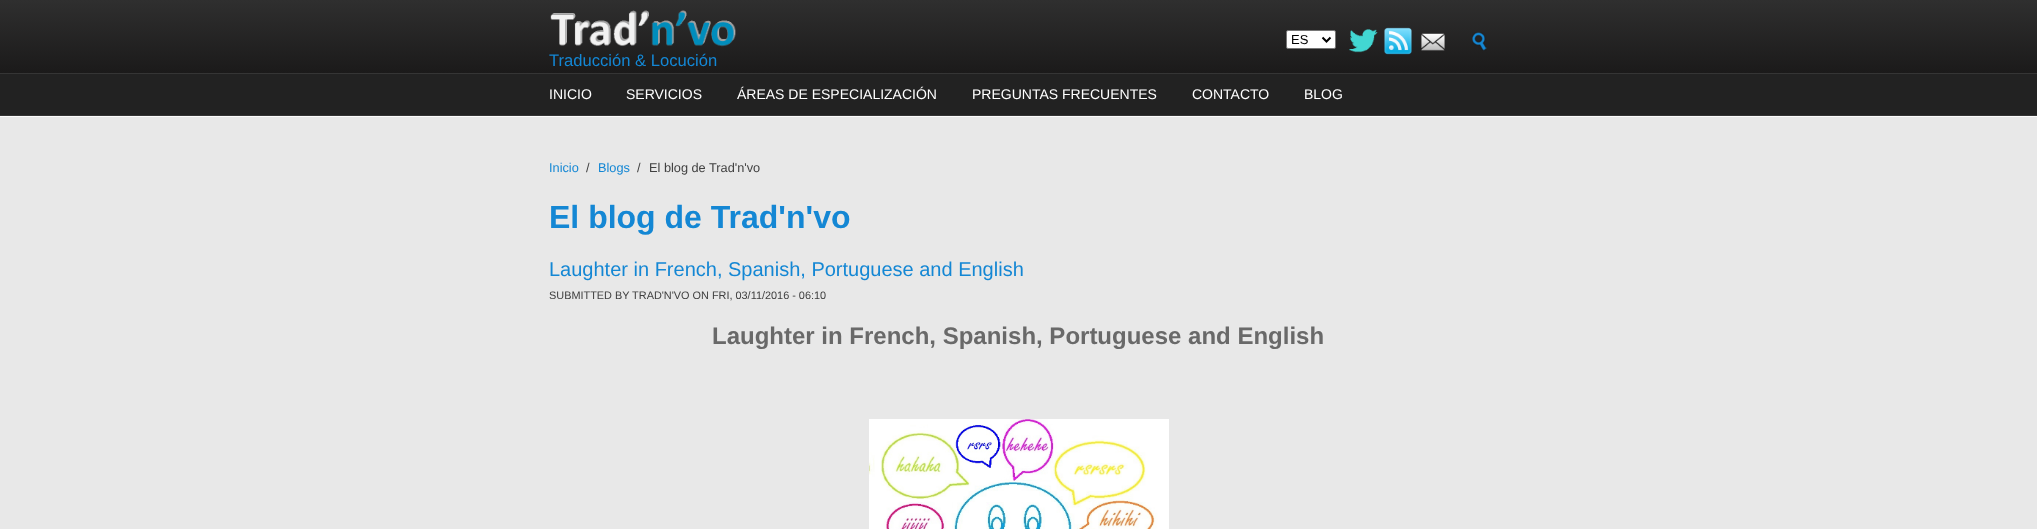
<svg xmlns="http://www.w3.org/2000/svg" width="2037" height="529">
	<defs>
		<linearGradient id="g1" gradientUnits="userSpaceOnUse" x1="1019" y1="0" x2="1019" y2="73"><stop offset="0" stop-color="#2F2F2F" /><stop offset="1" stop-color="#1B1A1A" /></linearGradient>
	</defs>
	<rect width="100%" height="100%" fill="#FFFFFF" />
	<rect x="0" y="0" width="2037" height="73" fill="url(#g1)" />
	<rect x="1286.5" y="30.5" width="49" height="18" rx="1.5" fill="#FFFFFF" stroke="#767676" />
	<path d="M1322.5 37.5L1326.5 41.5L1330.5 37.5" fill="none" stroke="#000000" stroke-width="2" />
	<text x="1291" y="44" font-family="Liberation Sans" font-size="13" fill="#000000">ES</text>
	<image x="1349" y="29" width="29" height="24" href="assets/img1.png" />
	<image x="1384" y="27" width="28" height="28" href="assets/img2.png" />
	<image x="1421" y="33" width="24" height="18" href="assets/img3.png" />
	<image x="1472" y="32" width="15" height="19" href="assets/img4.png" />
	<image x="550" y="10" width="186" height="37" href="assets/img5.png" />
	<text x="549" y="66" font-family="Liberation Sans" font-size="16.6" fill="#1487D4">Traducción &amp; Locución</text>
	<rect x="0" y="74" width="2037" height="41" fill="#222222" />
	<rect x="0" y="73" width="2037" height="1" fill="#353535" />
	<rect x="0" y="115" width="2037" height="1" fill="#353535" />
	<g font-family="Liberation Sans" font-size="14" fill="#FFFFFF">
		<text x="549" y="99">INICIO</text>
		<text x="626" y="99">SERVICIOS</text>
		<text x="737" y="99">ÁREAS DE ESPECIALIZACIÓN</text>
		<text x="972" y="99">PREGUNTAS FRECUENTES</text>
		<text x="1192" y="99">CONTACTO</text>
		<text x="1304" y="99">BLOG</text>
	</g>
	<rect x="0" y="116" width="2037" height="1" fill="#FCFCFC" />
	<rect x="0" y="117" width="2037" height="412" fill="#E8E8E8" />
	<text x="549" y="172" font-family="Liberation Sans" font-size="12.75" fill="#1487D4">Inicio</text>
	<text x="586" y="172" font-family="Liberation Sans" font-size="12.75" fill="#404040">/</text>
	<text x="598" y="172" font-family="Liberation Sans" font-size="12.75" fill="#1487D4">Blogs</text>
	<g font-family="Liberation Sans" font-size="12.75" fill="#404040">
		<text x="637" y="172">/</text>
		<text x="649" y="172">El blog de Trad'n'vo</text>
	</g>
	<text x="549" y="228" font-family="Liberation Sans" font-size="32" font-weight="700" fill="#1487D4">El blog de Trad'n'vo</text>
	<text x="549" y="276" font-family="Liberation Sans" font-size="20" fill="#1487D4">Laughter in French, Spanish, Portuguese and English</text>
	<text x="549" y="299" font-family="Liberation Sans" font-size="10.9" fill="#404040">SUBMITTED BY TRAD'N'VO ON FRI, 03/11/2016 - 06:10</text>
	<text x="712" y="344" font-family="Liberation Sans" font-size="24" font-weight="700" fill="#696969">Laughter in French, Spanish, Portuguese and English</text>
	<image x="869" y="419" width="300" height="110" href="assets/img6.png" />
</svg>
